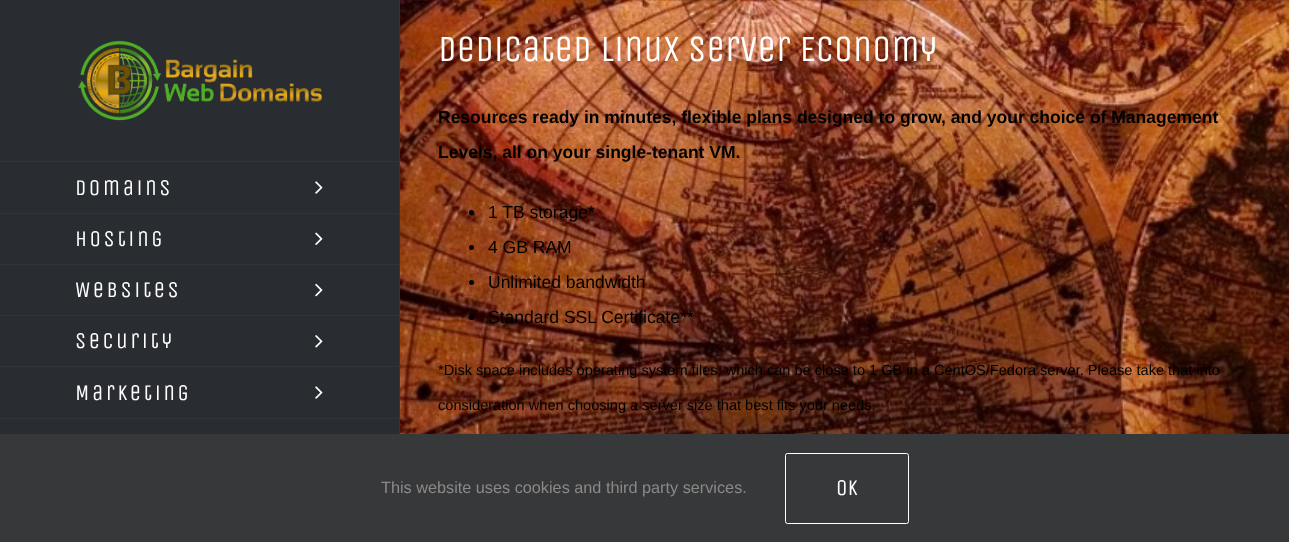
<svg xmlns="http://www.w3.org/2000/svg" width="1289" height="542">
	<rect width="100%" height="100%" fill="#FFFFFF" />
	<rect x="0" y="0" width="399" height="434" fill="#292C30" />
	<rect x="399" y="0" width="1" height="434" fill="#313539" />
	<image x="78" y="40" width="244" height="81" href="assets/img1.png" />
	<rect x="0" y="161" width="400" height="1" fill="#313539" />
	<rect x="0" y="213" width="400" height="1" fill="#313539" />
	<text x="75" y="195" font-family="Unica One" font-size="22.5" letter-spacing="2.5" fill="#FFFFFF">Domains</text>
	<image x="315" y="181" width="8" height="13" href="assets/img2.png" />
	<rect x="0" y="264" width="400" height="1" fill="#313539" />
	<text x="75" y="246" font-family="Unica One" font-size="22.5" letter-spacing="2.5" fill="#FFFFFF">Hosting</text>
	<image x="315" y="232" width="8" height="13" href="assets/img3.png" />
	<rect x="0" y="315" width="400" height="1" fill="#313539" />
	<text x="75" y="297" font-family="Unica One" font-size="22.5" letter-spacing="2.5" fill="#FFFFFF">Websites</text>
	<image x="315" y="283" width="8" height="14" href="assets/img4.png" />
	<rect x="0" y="366" width="400" height="1" fill="#313539" />
	<text x="75" y="348" font-family="Unica One" font-size="22.5" letter-spacing="2.5" fill="#FFFFFF">Security</text>
	<image x="315" y="335" width="8" height="13" href="assets/img5.png" />
	<rect x="0" y="418" width="400" height="1" fill="#313539" />
	<text x="75" y="400" font-family="Unica One" font-size="22.5" letter-spacing="2.5" fill="#FFFFFF">Marketing</text>
	<image x="315" y="386" width="8" height="13" href="assets/img2.png" />
	<image x="400" y="0" width="889" height="434" href="assets/img6.png" />
	<text x="438" y="61" font-family="Unica One" font-size="37" fill="#FFFFFF">Dedicated Linux Server Economy</text>
	<g font-family="Liberation Sans" font-size="17.5" font-weight="700" fill="#000000">
		<text x="438" y="123">Resources ready in minutes, flexible plans designed to grow, and your choice of Management</text>
		<text x="438" y="158">Levels, all on your single-tenant VM.</text>
	</g>
	<circle cx="471.5" cy="212.5" r="2.5" fill="#000000" />
	<text x="488" y="218" font-family="Liberation Sans" font-size="17.5" fill="#000000">1 TB storage*</text>
	<circle cx="471.5" cy="247.5" r="2.5" fill="#000000" />
	<text x="488" y="253" font-family="Liberation Sans" font-size="17.5" fill="#000000">4 GB RAM</text>
	<circle cx="471.5" cy="282.5" r="2.5" fill="#000000" />
	<text x="488" y="288" font-family="Liberation Sans" font-size="17.5" fill="#000000">Unlimited bandwidth</text>
	<circle cx="471.5" cy="317.5" r="2.5" fill="#000000" />
	<text x="488" y="323" font-family="Liberation Sans" font-size="17.5" fill="#000000">Standard SSL Certificate**</text>
	<g font-family="Liberation Sans" font-size="14.58" fill="#000000">
		<text x="438" y="375">*Disk space includes operating system files, which can be close to 1 GB in a CentOS/Fedora server. Please take that into</text>
		<text x="438" y="410">consideration when choosing a server size that best fits your needs.</text>
	</g>
	<rect x="0" y="434" width="1289" height="108" fill="#363839" />
	<text x="381" y="493" font-family="Liberation Sans" font-size="16.25" fill="#8C8989">This website uses cookies and third party services.</text>
	<rect x="785.5" y="453.5" width="123" height="70" rx="2" fill="none" stroke="#FFFFFF" />
	<text x="836" y="495" font-family="Unica One" font-size="22.5" fill="#FFFFFF">OK</text>
</svg>
